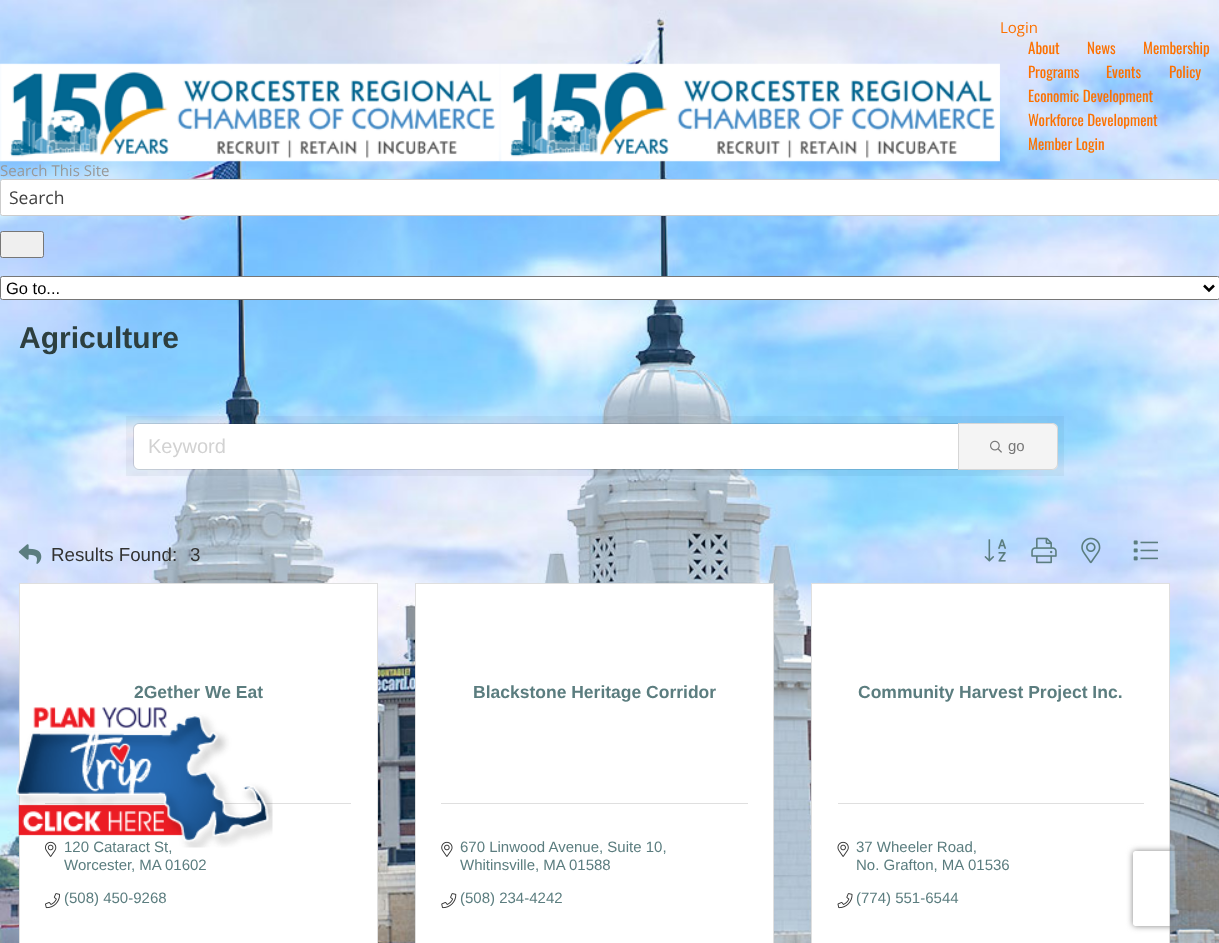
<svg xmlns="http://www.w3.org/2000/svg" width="1219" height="943">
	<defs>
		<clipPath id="clip1"><path d="M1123 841H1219V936H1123ZM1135.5 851H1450.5C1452 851 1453 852 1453 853.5V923.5C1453 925 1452 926 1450.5 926H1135.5C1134 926 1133 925 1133 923.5V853.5C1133 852 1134 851 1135.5 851Z" clip-rule="evenodd" /></clipPath>
	</defs>
	<rect width="100%" height="100%" fill="#FFFFFF" />
	<image x="0" y="0" width="1219" height="943" href="assets/img1.png" />
	<text x="1000" y="33" font-family="Open Sans" font-size="15" fill="#FC7100">Login</text>
	<g font-family="Oswald" font-size="15" fill="#FC7100">
		<text x="1028" y="54">About</text>
		<text x="1087" y="54">News</text>
		<text x="1143" y="54">Membership</text>
		<text x="1028" y="78">Programs</text>
		<text x="1106" y="78">Events</text>
		<text x="1169" y="78">Policy</text>
		<text x="1028" y="102">Economic Development</text>
		<text x="1028" y="126">Workforce Development</text>
		<text x="1028" y="150">Member Login</text>
	</g>
	<rect x="0.5" y="276.5" width="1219" height="23" rx="2" fill="#FFFFFF" stroke="#767676" />
	<path d="M1204 285.5L1209 290.5L1214 285.5" fill="none" stroke="#000000" stroke-width="2.5" />
	<text x="6" y="294" font-family="Liberation Sans" font-size="16.5" fill="#000000">Go to...</text>
	<text x="19" y="348" font-family="Liberation Sans" font-size="30" font-weight="700" fill="#2D3F3F">Agriculture</text>
	<rect x="126" y="416" width="938" height="60" fill="#000000" fill-opacity="0.04" />
	<path d="M139 424H958V469H139C136 469 134 467 134 464V429C134 426 136 424 139 424Z" fill="#FFFFFF" />
	<path d="M139 423.5H958.5V469.5H139C136 469.5 133.5 467 133.5 464V429C133.5 426 136 423.5 139 423.5Z" fill="none" stroke="#000000" stroke-opacity="0.12" />
	<text x="148" y="453" font-family="Liberation Sans" font-size="20" fill="#D2D2D2">Keyword</text>
	<path d="M958 423H1052C1055.5 423 1058 425.5 1058 429V464C1058 467.5 1055.5 470 1052 470H958Z" fill="#F4F4F4" />
	<path d="M958.5 423.5H1052C1055 423.5 1057.5 426 1057.5 429V464C1057.5 467 1055 469.5 1052 469.5H958.5Z" fill="none" stroke="#000000" stroke-opacity="0.12" />
	<image x="990" y="440" width="12" height="13" href="assets/img2.png" />
	<text x="1008" y="451" font-family="Liberation Sans" font-size="15" fill="#777777">go</text>
	<image x="18" y="544" width="24" height="20" href="assets/img3.png" />
	<g font-family="Liberation Sans" font-size="18.75" fill="#333333">
		<text x="51" y="561">Results Found:</text>
		<text x="190" y="561">3</text>
	</g>
	<image x="984" y="539" width="22" height="23" href="assets/img4.png" />
	<image x="1031" y="537" width="26" height="27" href="assets/img5.png" />
	<image x="1081" y="537" width="20" height="27" href="assets/img6.png" />
	<image x="1133" y="540" width="25" height="21" href="assets/img7.png" />
	<rect x="19.5" y="583.5" width="358" height="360" fill="#FFFFFF" stroke="#DFDFDF" />
	<text x="134" y="698" font-family="Liberation Sans" font-size="17.5" font-weight="700" fill="#5B7D7F">2Gether We Eat</text>
	<rect x="45" y="803" width="306" height="1" fill="#DFDFDF" />
	<image x="45" y="841" width="12" height="16" href="assets/img8.png" />
	<g font-family="Liberation Sans" font-size="15" fill="#5B7D7F">
		<text x="64" y="852">120 Cataract St,</text>
		<text x="64" y="870">Worcester</text>
		<text x="131" y="870">, MA</text>
		<text x="165" y="870">01602</text>
	</g>
	<image x="45" y="893" width="15" height="16" href="assets/img9.png" />
	<text x="64" y="903" font-family="Liberation Sans" font-size="15" fill="#5B7D7F">(508) 450-9268</text>
	<rect x="415.5" y="583.5" width="358" height="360" fill="#FFFFFF" stroke="#DFDFDF" />
	<text x="473" y="698" font-family="Liberation Sans" font-size="17.5" font-weight="700" fill="#5B7D7F">Blackstone Heritage Corridor</text>
	<rect x="441" y="803" width="307" height="1" fill="#DFDFDF" />
	<image x="441" y="841" width="12" height="16" href="assets/img10.png" />
	<g font-family="Liberation Sans" font-size="15" fill="#5B7D7F">
		<text x="460" y="852">670 Linwood Avenue, Suite 10,</text>
		<text x="460" y="870">Whitinsville, MA</text>
		<text x="569" y="870">01588</text>
	</g>
	<image x="441" y="893" width="16" height="16" href="assets/img11.png" />
	<text x="460" y="903" font-family="Liberation Sans" font-size="15" fill="#5B7D7F">(508) 234-4242</text>
	<rect x="811.5" y="583.5" width="358" height="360" fill="#FFFFFF" stroke="#DFDFDF" />
	<text x="858" y="698" font-family="Liberation Sans" font-size="17.5" font-weight="700" fill="#5B7D7F">Community Harvest Project Inc.</text>
	<rect x="838" y="803" width="306" height="1" fill="#DFDFDF" />
	<image x="837" y="841" width="12" height="16" href="assets/img12.png" />
	<g font-family="Liberation Sans" font-size="15" fill="#5B7D7F">
		<text x="856" y="852">37 Wheeler Road,</text>
		<text x="856" y="870">No. Grafton, MA</text>
		<text x="968" y="870">01536</text>
	</g>
	<image x="837" y="893" width="16" height="16" href="assets/img13.png" />
	<text x="856" y="903" font-family="Liberation Sans" font-size="15" fill="#5B7D7F">(774) 551-6544</text>
	<image x="0" y="63" width="500" height="99" href="assets/img14.png" />
	<image x="500" y="63" width="500" height="99" href="assets/img15.png" />
	<text x="0" y="176" font-family="Open Sans" font-size="15" fill="#989898">Search This Site</text>
	<rect x="0.5" y="179.5" width="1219" height="36" rx="2" fill="#FFFFFF" stroke="#CCCCCC" />
	<text x="9" y="204" font-family="Open Sans" font-size="17.5" fill="#404040">Search</text>
	<rect x="0.5" y="231.5" width="43" height="26" rx="2" fill="#EFEFEF" stroke="#767676" />
	<image x="16" y="707" width="257" height="141" href="assets/img16.png" />
	<g clip-path="url(#clip1)">
		<rect x="1133" y="851" width="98" height="75" rx="2.5" fill="#808080" filter="blur(3px)" />
	</g>
</svg>
